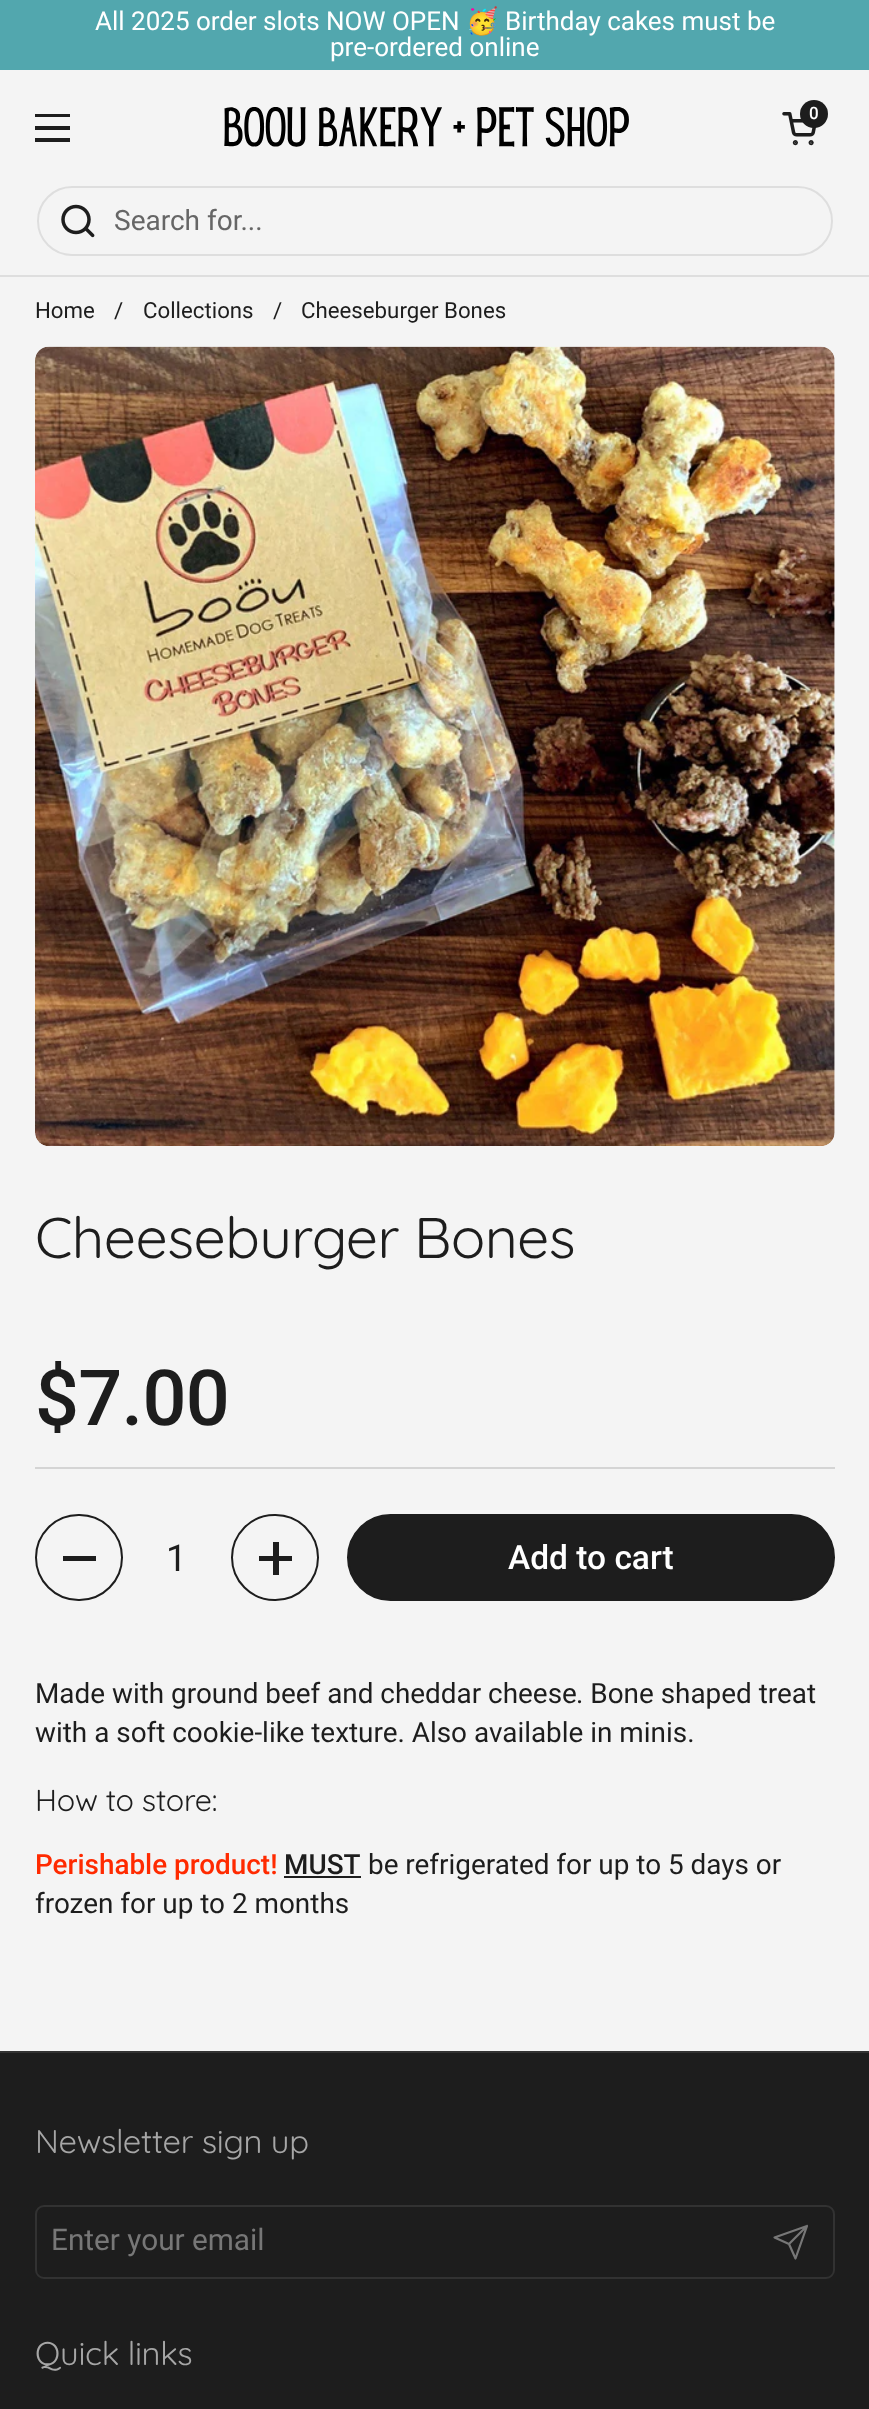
<svg xmlns="http://www.w3.org/2000/svg" width="869" height="2409">
	<rect width="100%" height="100%" fill="#F4F4F4" />
	<rect x="0" y="0" width="869" height="70" fill="#52A7AE" />
	<text x="95" y="30" font-family="Roboto" font-size="26" fill="#FFFFFF">All 2025 order slots NOW OPEN</text>
	<text x="466" y="30" font-family="Noto Color Emoji" font-size="26" fill="#FFFFFF">🥳</text>
	<g font-family="Roboto" font-size="26" fill="#FFFFFF">
		<text x="505" y="30">Birthday cakes must be</text>
		<text x="330" y="56">pre-ordered online</text>
	</g>
	<rect x="35" y="114" width="35" height="3" fill="#1D1D1D" />
	<rect x="35" y="126" width="35" height="4" fill="#1D1D1D" />
	<rect x="35" y="138" width="35" height="4" fill="#1D1D1D" />
	<image x="224" y="107" width="405" height="40" href="assets/img1.png" />
	<image x="782" y="112" width="34" height="34" href="assets/img2.png" />
	<circle cx="814" cy="114" r="14" fill="#1D1D1D" />
	<text x="809" y="119" font-family="Roboto" font-size="17" font-weight="500" fill="#FFFFFF">0</text>
	<rect x="0" y="275" width="869" height="2" fill="#DEDEDE" />
	<rect x="38" y="187" width="794" height="68" rx="34" fill="none" stroke="#DEDEDE" stroke-width="2" />
	<image x="61" y="204" width="34" height="34" href="assets/img3.png" />
	<text x="114" y="230" font-family="Roboto" font-size="28" fill="#666666">Search for...</text>
	<g font-family="Roboto" font-size="22.25" fill="#1D1D1D">
		<text x="35" y="318">Home</text>
		<text x="114" y="318">/</text>
		<text x="143" y="318">Collections</text>
		<text x="273" y="318">/</text>
		<text x="301" y="318">Cheeseburger Bones</text>
	</g>
	<image x="35" y="346" width="800" height="800" href="assets/img4.png" />
	<text x="35" y="1258" font-family="Quicksand" font-size="57.25" letter-spacing="-0.6" fill="#1D1D1D">Cheeseburger Bones</text>
	<text x="35" y="1425" font-family="Roboto" font-size="77.5" font-weight="500" letter-spacing="-0.75" fill="#1D1D1D">$7.00</text>
	<rect x="35" y="1467" width="800" height="2" fill="#D4D4D4" />
	<rect x="36" y="1515" width="86" height="85" rx="42.5" fill="none" stroke="#1D1D1D" stroke-width="2" />
	<rect x="63" y="1556" width="33" height="5" fill="#1D1D1D" />
	<text x="166" y="1571" font-family="Roboto" font-size="37" fill="#1D1D1D">1</text>
	<rect x="232" y="1515" width="86" height="85" rx="42.5" fill="none" stroke="#1D1D1D" stroke-width="2" />
	<rect x="273" y="1542" width="6" height="33" fill="#1D1D1D" />
	<rect x="259" y="1556" width="33" height="5" fill="#1D1D1D" />
	<rect x="348" y="1515" width="486" height="85" rx="42.5" fill="#1D1D1D" stroke="#1D1D1D" stroke-width="2" />
	<text x="508" y="1569" font-family="Roboto" font-size="33.5" font-weight="500" fill="#FFFFFF">Add to cart</text>
	<g font-family="Roboto" font-size="27.9" fill="#1D1D1D">
		<text x="35" y="1703">Made with ground beef and cheddar cheese</text>
		<text x="576" y="1703">. Bone shaped treat</text>
		<text x="35" y="1742">with a soft cookie-like texture. Also available in minis.</text>
	</g>
	<text x="35" y="1811" font-family="Quicksand" font-size="30.5" letter-spacing="-0.25" fill="#1D1D1D">How to store:</text>
	<text x="35" y="1874" font-family="Roboto" font-size="27.9" font-weight="500" fill="#FF2A00">Perishable product!</text>
	<text x="284" y="1874" font-family="Roboto" font-size="27.9" font-weight="500" fill="#1D1D1D">MUST</text>
	<rect x="284" y="1876" width="77" height="2" fill="#1D1D1D" />
	<g font-family="Roboto" font-size="27.9" fill="#1D1D1D">
		<text x="368" y="1874">be refrigerated for up to 5 days or</text>
		<text x="35" y="1913">frozen for up to 2 months</text>
	</g>
	<rect x="0" y="2053" width="869" height="356" fill="#1D1D1D" />
	<rect x="0" y="2051" width="869" height="2" fill="#323232" />
	<text x="35" y="2153" font-family="Quicksand" font-size="32.75" letter-spacing="-0.3" fill="#A6A6A6">Newsletter sign up</text>
	<rect x="36" y="2206" width="798" height="72" rx="8" fill="none" stroke="#323232" stroke-width="2" />
	<text x="51" y="2250" font-family="Roboto" font-size="29.75" fill="#777777">Enter your email</text>
	<path d="M807 2226L789 2244M807 2226L795.5 2258.5L789 2244L774.5 2237.5Z" fill="none" stroke="#777777" stroke-width="2.2" stroke-linecap="round" stroke-linejoin="round" />
	<text x="35" y="2365" font-family="Quicksand" font-size="32.75" letter-spacing="-0.3" fill="#A6A6A6">Quick links</text>
</svg>
